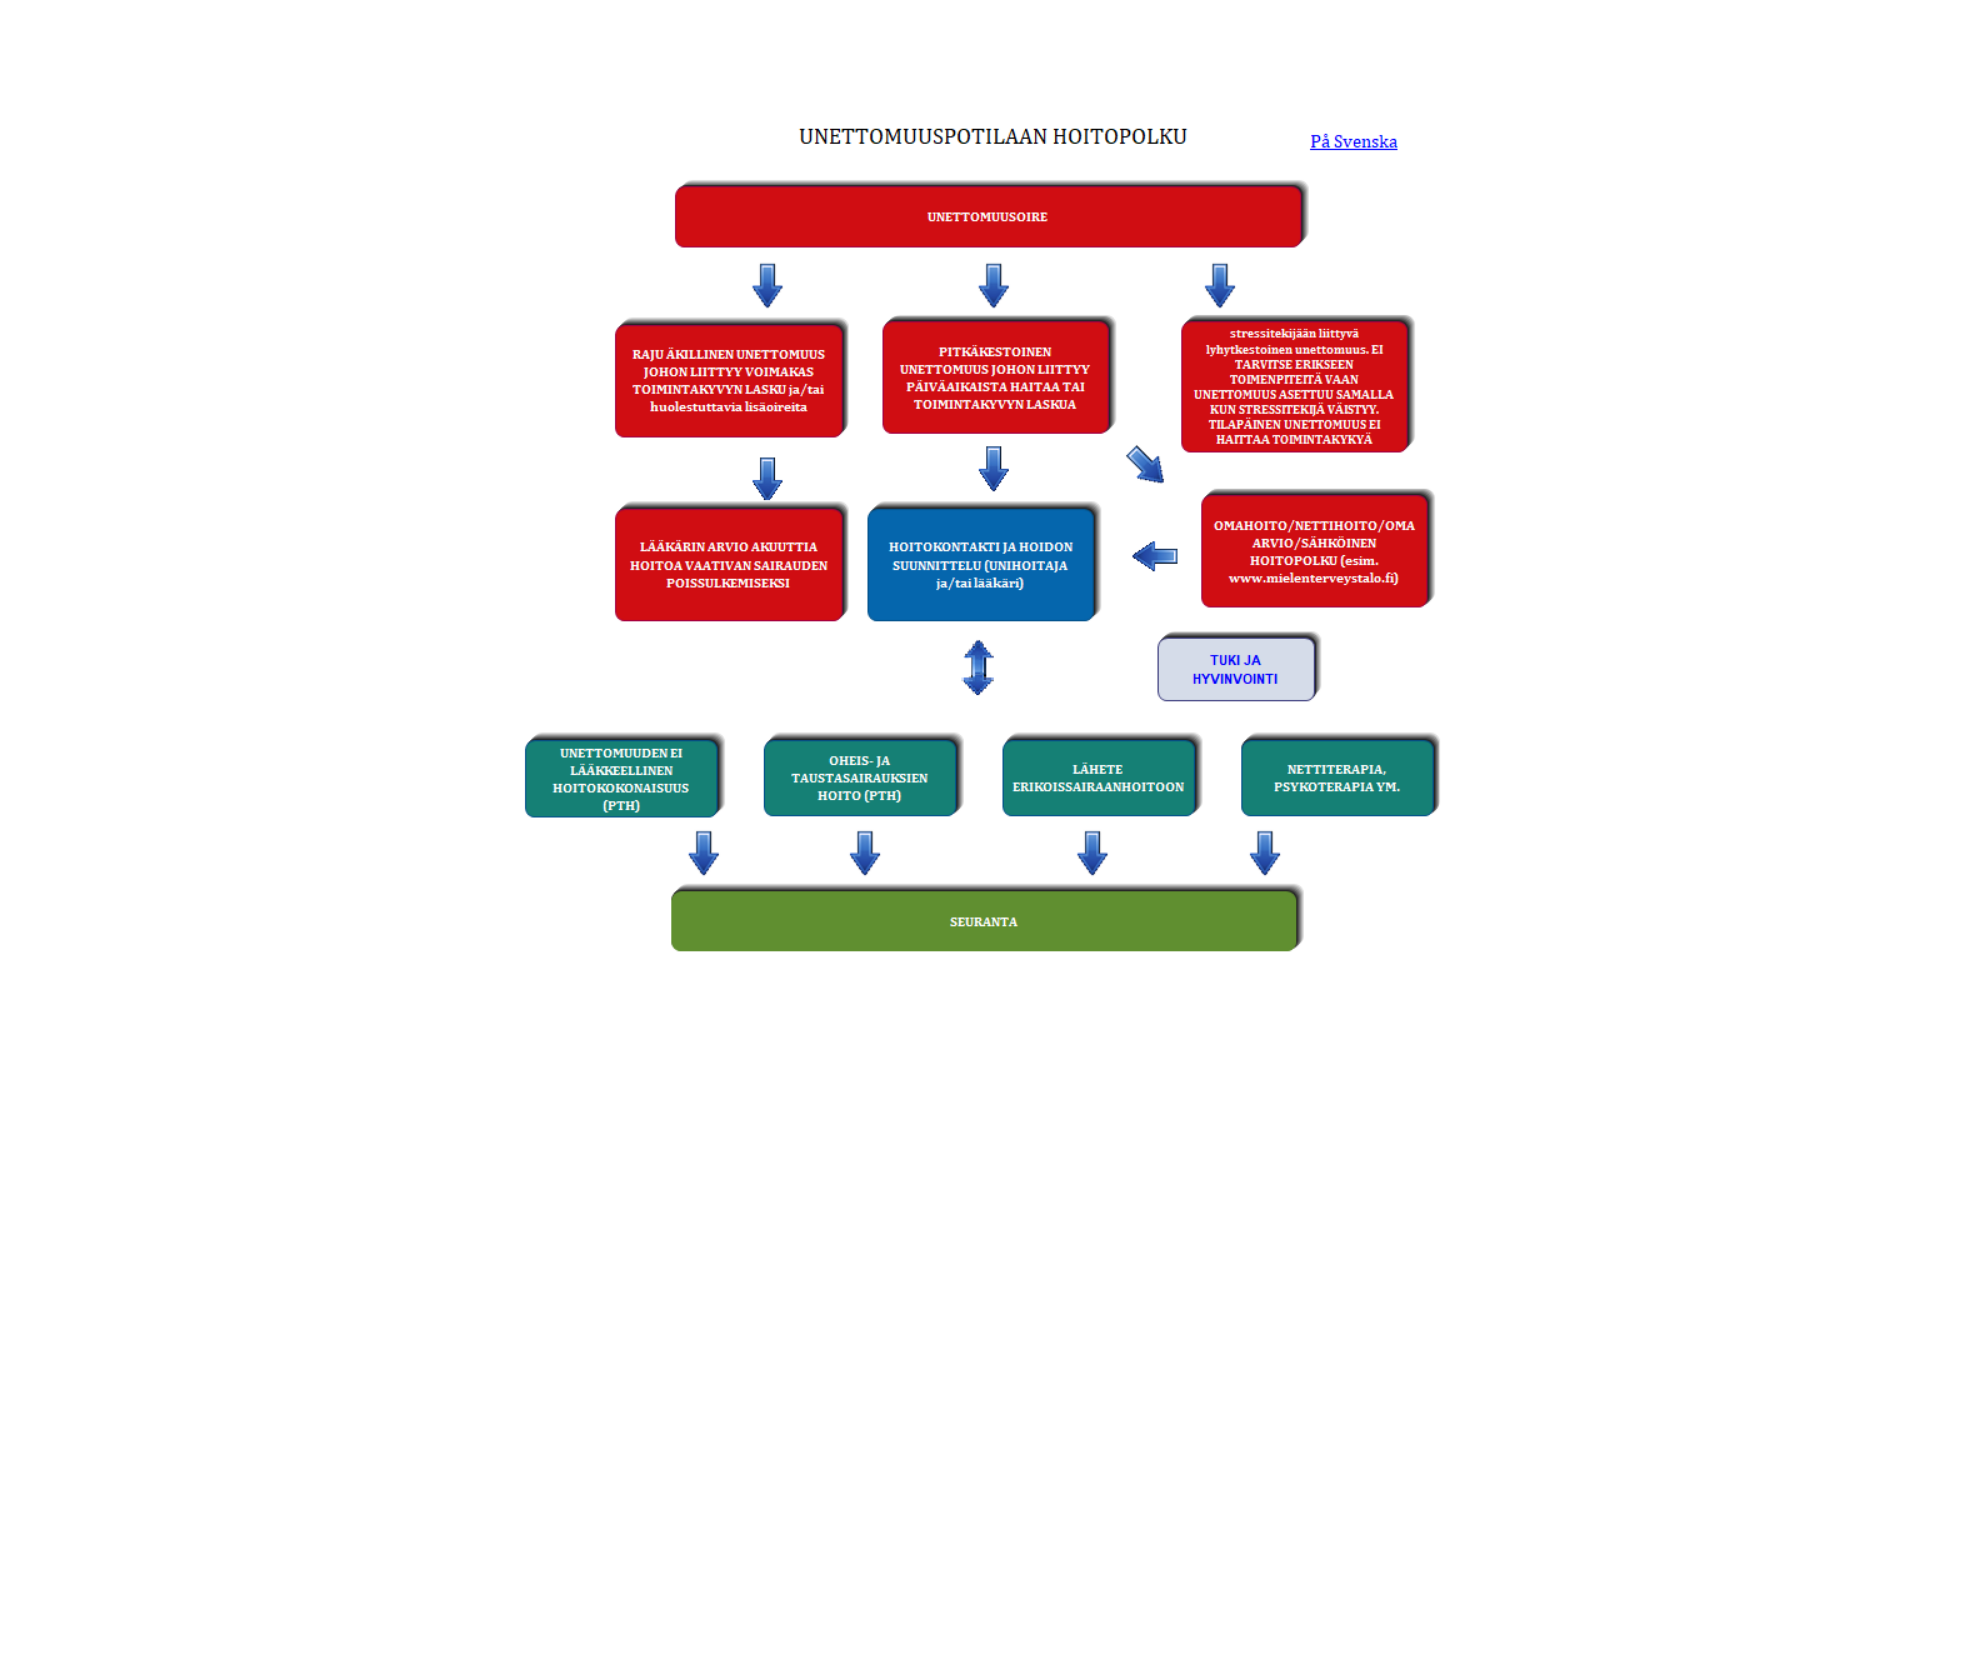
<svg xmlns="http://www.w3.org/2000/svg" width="1974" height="1677">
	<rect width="100%" height="100%" fill="#FFFFFF" />
	<image x="524" y="128" width="917" height="824" href="assets/img1.png" />
</svg>
